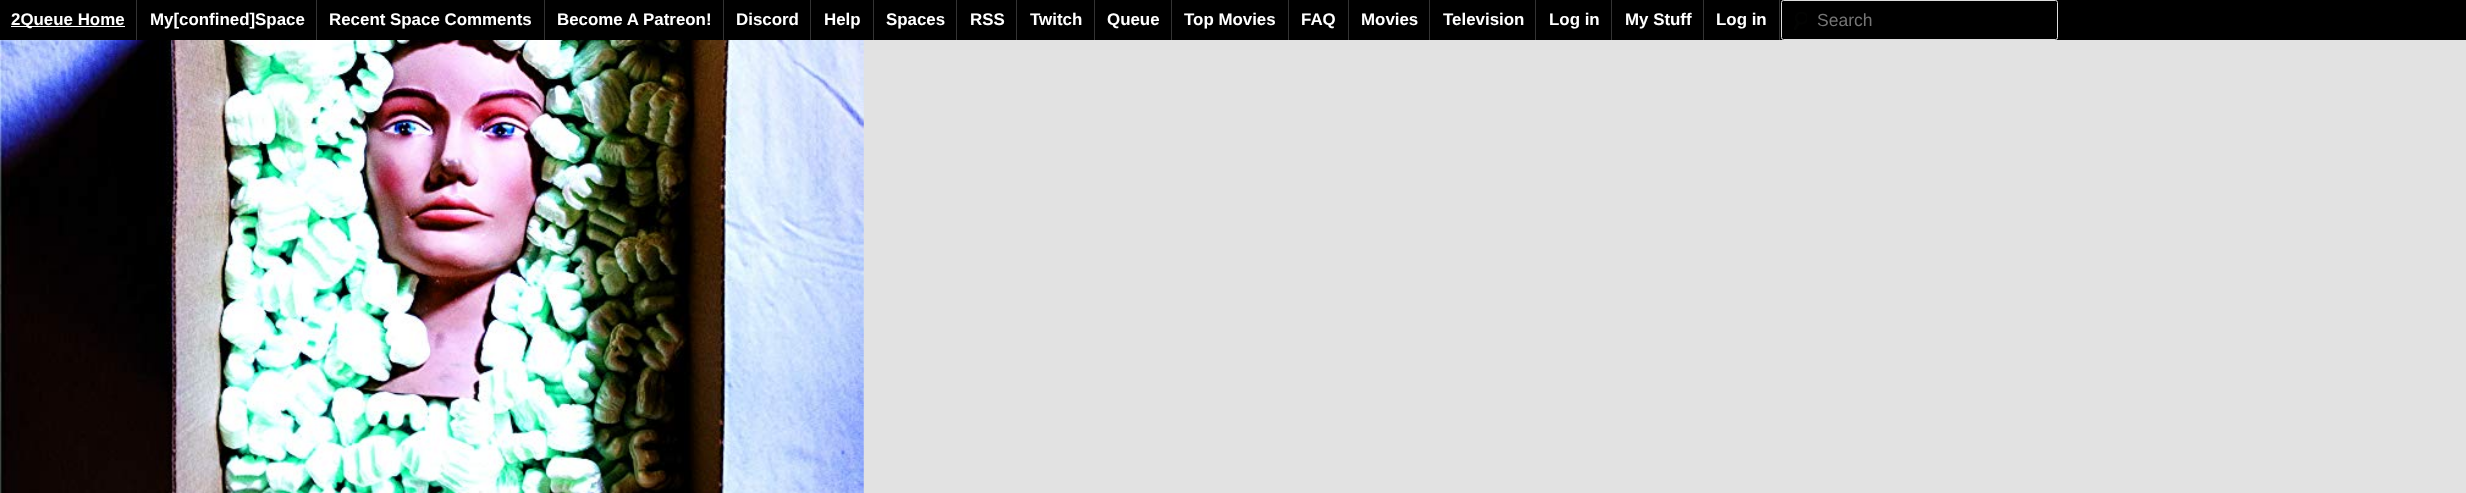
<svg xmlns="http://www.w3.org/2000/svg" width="2466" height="493">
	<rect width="100%" height="100%" fill="#E2E2E2" />
	<rect x="0" y="0" width="2466" height="40" fill="#000000" />
	<rect x="136" y="0" width="1" height="40" fill="#333333" />
	<rect x="11" y="26" width="114" height="1" fill="#FFFFFF" />
	<text x="11" y="25" font-family="Liberation Sans" font-size="16.9" font-weight="700" fill="#FFFFFF">2Queue Home</text>
	<rect x="316" y="0" width="1" height="40" fill="#333333" />
	<text x="150" y="25" font-family="Liberation Sans" font-size="16.9" font-weight="700" fill="#FFFFFF">My[confined]Space</text>
	<rect x="544" y="0" width="1" height="40" fill="#333333" />
	<text x="329" y="25" font-family="Liberation Sans" font-size="16.9" font-weight="700" fill="#FFFFFF">Recent Space Comments</text>
	<rect x="723" y="0" width="1" height="40" fill="#333333" />
	<text x="557" y="25" font-family="Liberation Sans" font-size="16.9" font-weight="700" fill="#FFFFFF">Become A Patreon!</text>
	<rect x="810" y="0" width="1" height="40" fill="#333333" />
	<text x="736" y="25" font-family="Liberation Sans" font-size="16.9" font-weight="700" fill="#FFFFFF">Discord</text>
	<rect x="873" y="0" width="1" height="40" fill="#333333" />
	<text x="824" y="25" font-family="Liberation Sans" font-size="16.9" font-weight="700" fill="#FFFFFF">Help</text>
	<rect x="956" y="0" width="1" height="40" fill="#333333" />
	<text x="886" y="25" font-family="Liberation Sans" font-size="16.9" font-weight="700" fill="#FFFFFF">Spaces</text>
	<rect x="1016" y="0" width="1" height="40" fill="#333333" />
	<text x="970" y="25" font-family="Liberation Sans" font-size="16.9" font-weight="700" fill="#FFFFFF">RSS</text>
	<rect x="1094" y="0" width="1" height="40" fill="#333333" />
	<text x="1030" y="25" font-family="Liberation Sans" font-size="16.9" font-weight="700" fill="#FFFFFF">Twitch</text>
	<rect x="1171" y="0" width="1" height="40" fill="#333333" />
	<text x="1107" y="25" font-family="Liberation Sans" font-size="16.9" font-weight="700" fill="#FFFFFF">Queue</text>
	<rect x="1288" y="0" width="1" height="40" fill="#333333" />
	<text x="1184" y="25" font-family="Liberation Sans" font-size="16.9" font-weight="700" fill="#FFFFFF">Top Movies</text>
	<rect x="1348" y="0" width="1" height="40" fill="#333333" />
	<text x="1301" y="25" font-family="Liberation Sans" font-size="16.9" font-weight="700" fill="#FFFFFF">FAQ</text>
	<rect x="1429" y="0" width="1" height="40" fill="#333333" />
	<text x="1361" y="25" font-family="Liberation Sans" font-size="16.9" font-weight="700" fill="#FFFFFF">Movies</text>
	<rect x="1535" y="0" width="1" height="40" fill="#333333" />
	<text x="1443" y="25" font-family="Liberation Sans" font-size="16.9" font-weight="700" fill="#FFFFFF">Television</text>
	<rect x="1611" y="0" width="1" height="40" fill="#333333" />
	<text x="1549" y="25" font-family="Liberation Sans" font-size="16.9" font-weight="700" fill="#FFFFFF">Log in</text>
	<rect x="1703" y="0" width="1" height="40" fill="#333333" />
	<text x="1625" y="25" font-family="Liberation Sans" font-size="16.9" font-weight="700" fill="#FFFFFF">My Stuff</text>
	<rect x="1779" y="0" width="1" height="40" fill="#333333" />
	<text x="1716" y="25" font-family="Liberation Sans" font-size="16.9" font-weight="700" fill="#FFFFFF">Log in</text>
	<image x="1794" y="12" width="13" height="18" href="assets/img1.png" />
	<rect x="1781.5" y="0.5" width="276" height="39" rx="2" fill="none" stroke="#DDDDDD" />
	<text x="1817" y="26" font-family="Liberation Sans" font-size="17.5" fill="#757575">Search</text>
	<image x="0" y="40" width="864" height="453" href="assets/img2.png" />
</svg>
